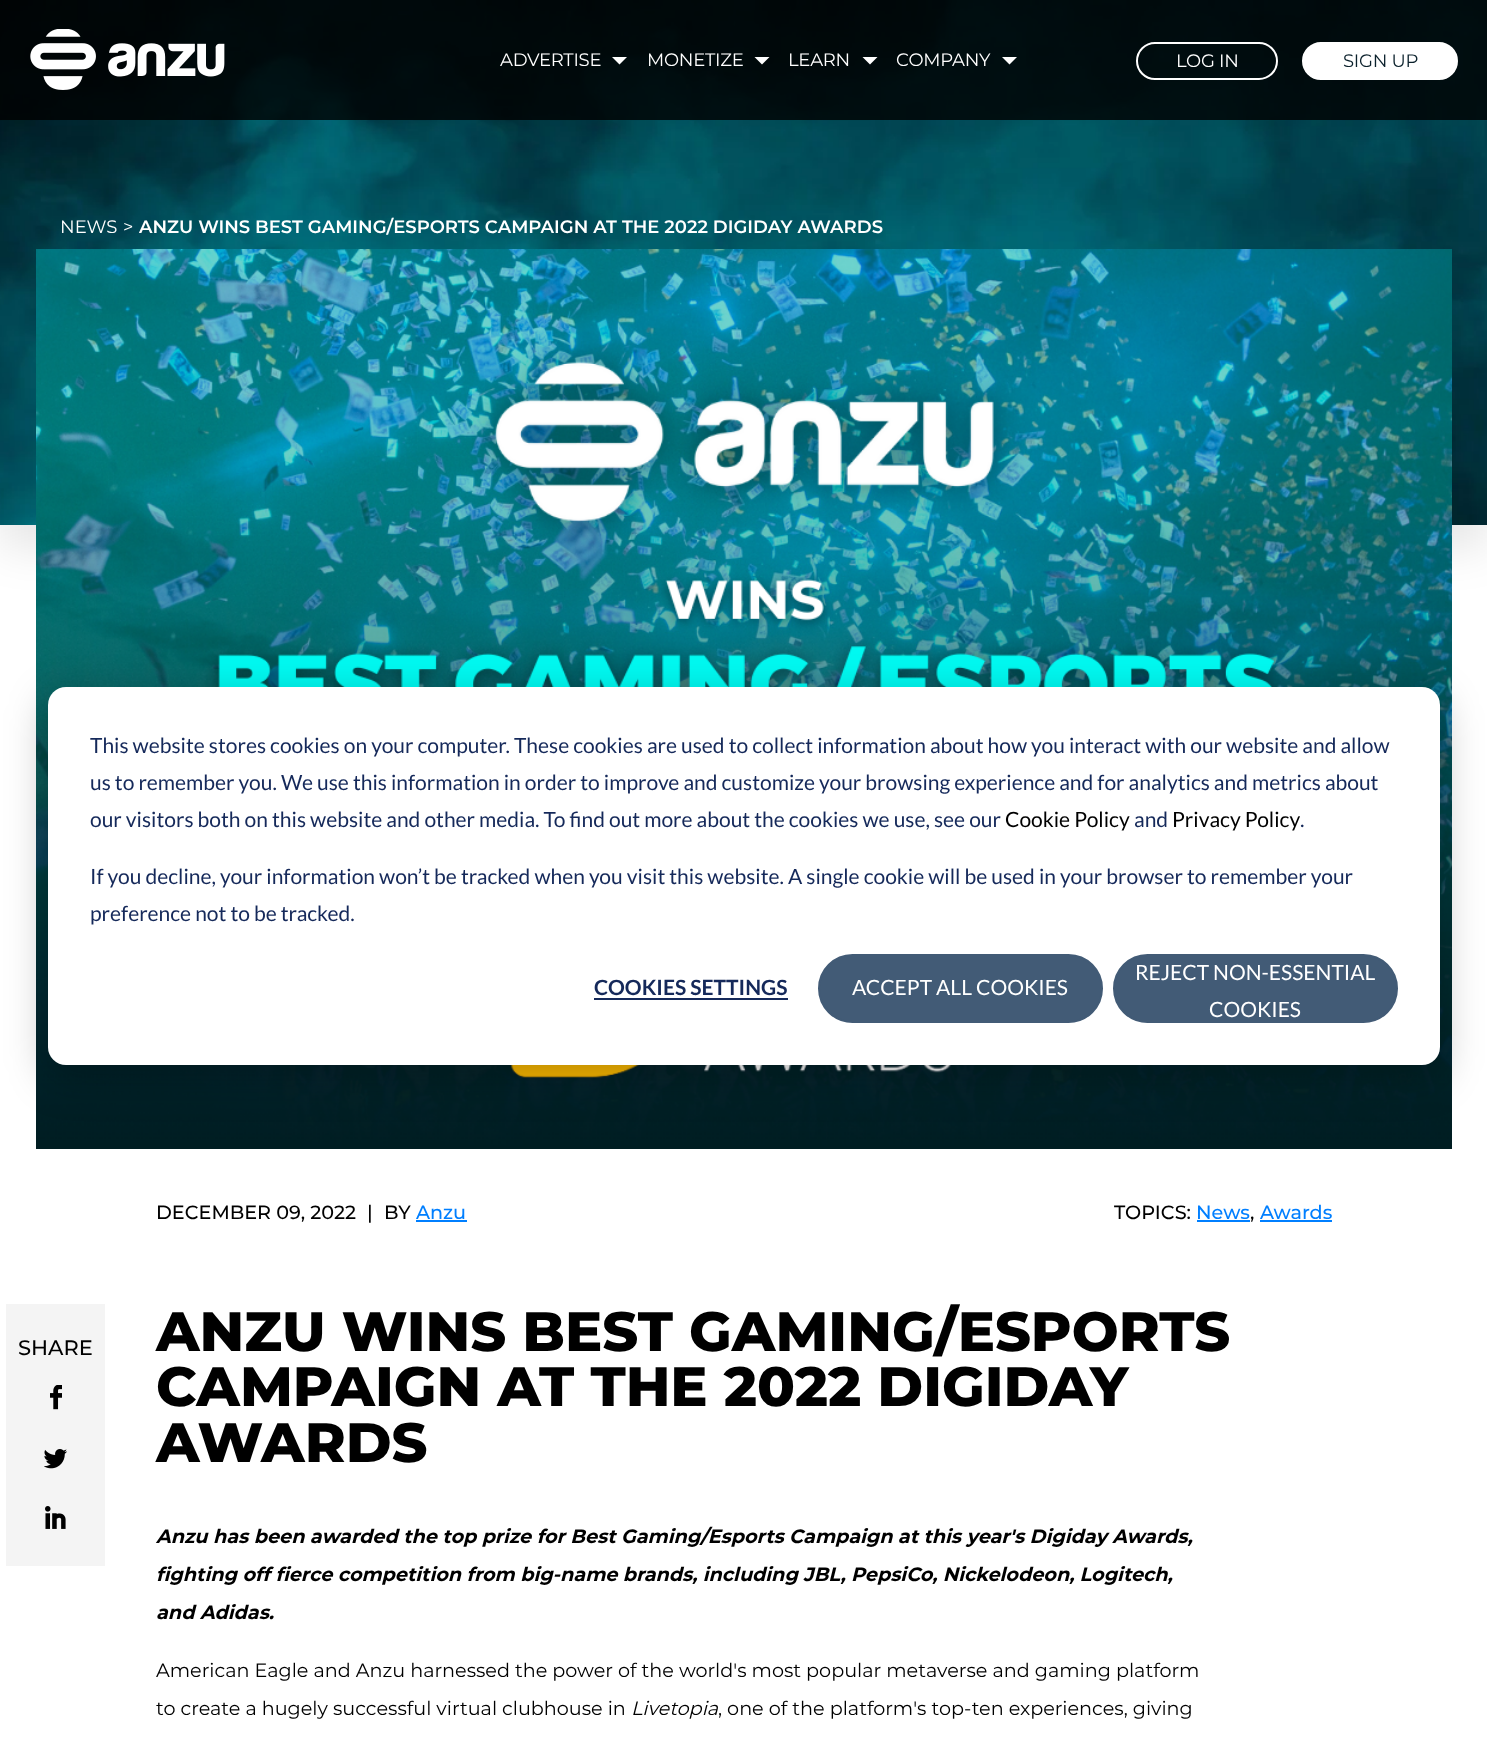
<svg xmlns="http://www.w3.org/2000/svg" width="1487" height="1750">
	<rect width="100%" height="100%" fill="#FFFFFF" />
	<rect x="0" y="23" width="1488" height="525" fill="#000000" fill-opacity="0.1" filter="blur(22.5px)" />
	<image x="0" y="0" width="1487" height="525" href="assets/img2.png" />
	<rect x="0" y="0" width="1487" height="120" fill="#000000" fill-opacity="0.8" />
	<image x="30" y="29" width="195" height="61" href="assets/img1.png" />
	<text x="500" y="66" font-family="Montserrat" font-size="18" letter-spacing="-0.25" fill="#FFFFFF">ADVERTISE</text>
	<path d="M612 57H627L619.5 64.5Z" fill="#FFFFFF" />
	<text x="647" y="66" font-family="Montserrat" font-size="18" letter-spacing="-0.25" fill="#FFFFFF">MONETIZE</text>
	<path d="M754.5 57H769.5L762 64.5Z" fill="#FFFFFF" />
	<text x="788" y="66" font-family="Montserrat" font-size="18" letter-spacing="-0.25" fill="#FFFFFF">LEARN</text>
	<path d="M862.5 57H877.5L870 64.5Z" fill="#FFFFFF" />
	<text x="896" y="66" font-family="Montserrat" font-size="18" letter-spacing="-0.25" fill="#FFFFFF">COMPANY</text>
	<path d="M1002 57H1017L1009.5 64.5Z" fill="#FFFFFF" />
	<rect x="1137" y="43" width="140" height="36" rx="18" fill="none" stroke="#FFFFFF" stroke-width="2" />
	<text x="1176" y="67" font-family="Montserrat" font-size="18" letter-spacing="-0.25" fill="#FFFFFF">LOG IN</text>
	<rect x="1303" y="43" width="154" height="36" rx="18" fill="#FFFFFF" stroke="#FFFFFF" stroke-width="2" />
	<text x="1343" y="67" font-family="Montserrat" font-size="18" letter-spacing="-0.25" fill="#0B212C">SIGN UP</text>
	<g font-family="Montserrat" font-size="18" fill="#FFFFFF">
		<text x="60" y="233">NEWS</text>
		<text x="123" y="233">&gt;</text>
	</g>
	<text x="139" y="233" font-family="Montserrat" font-size="18" font-weight="600" fill="#FFFFFF">ANZU WINS BEST GAMING/ESPORTS CAMPAIGN AT THE 2022 DIGIDAY AWARDS</text>
	<image x="36" y="249" width="1416" height="900" href="assets/img3.png" />
	<g font-family="Montserrat" font-size="19.2" font-weight="500" fill="#000000">
		<text x="156" y="1219">DECEMBER 09, 2022</text>
		<text x="367" y="1219">|</text>
		<text x="384" y="1219">BY</text>
	</g>
	<text x="416" y="1219" font-family="Montserrat" font-size="19.2" font-weight="500" fill="#007FFF">Anzu</text>
	<rect x="416" y="1220" width="51" height="2" fill="#007FFF" />
	<text x="1114" y="1219" font-family="Montserrat" font-size="19.2" font-weight="500" fill="#000000">TOPICS:</text>
	<text x="1196" y="1219" font-family="Montserrat" font-size="19.2" font-weight="500" fill="#007FFF">News</text>
	<text x="1250" y="1219" font-family="Montserrat" font-size="19.2" font-weight="500" fill="#000000">,</text>
	<rect x="1197" y="1220" width="53" height="2" fill="#007FFF" />
	<rect x="1260" y="1220" width="72" height="2" fill="#007FFF" />
	<text x="1260" y="1219" font-family="Montserrat" font-size="19.2" font-weight="500" fill="#007FFF">Awards</text>
	<rect x="6" y="1304" width="99" height="262" fill="#F4F4F4" />
	<text x="18" y="1355" font-family="Montserrat" font-size="21" font-weight="500" fill="#000000">SHARE</text>
	<image x="50" y="1385" width="12" height="25" href="assets/img4.png" />
	<image x="44" y="1449" width="23" height="20" href="assets/img5.png" />
	<image x="45" y="1506" width="21" height="23" href="assets/img6.png" />
	<g font-family="Montserrat" font-size="55.5" font-weight="800" fill="#000000">
		<text x="156" y="1351">ANZU WINS BEST GAMING/ESPORTS</text>
		<text x="156" y="1406">CAMPAIGN AT THE 2022 DIGIDAY</text>
		<text x="156" y="1462">AWARDS</text>
	</g>
	<g font-family="Montserrat" font-size="19.2" font-weight="700" font-style="italic" fill="#000000">
		<text x="156" y="1543">Anzu has been awarded the top prize for Best Gaming/Esports Campaign at this year's Digiday Awards,</text>
		<text x="156" y="1581">fighting off fierce competition from big-name brands, including JBL, PepsiCo, Nickelodeon, Logitech,</text>
		<text x="156" y="1619">and Adidas.</text>
	</g>
	<g font-family="Montserrat" font-size="19.2" fill="#000000">
		<text x="156" y="1677">American Eagle and Anzu harnessed the power of the world's most popular metaverse and gaming platform</text>
		<text x="156" y="1715">to create a hugely successful virtual clubhouse in</text>
	</g>
	<text x="631" y="1715" font-family="Montserrat" font-size="19.2" font-style="italic" fill="#000000">Livetopia</text>
	<text x="718" y="1715" font-family="Montserrat" font-size="19.2" fill="#000000">, one of the platform's top-ten experiences, giving</text>
	<rect x="48" y="699" width="1392" height="378" rx="18" fill="#000000" fill-opacity="0.28" filter="blur(21px)" />
	<rect x="48" y="687" width="1392" height="378" rx="18" fill="#FFFFFF" />
	<g font-family="Lato" font-size="21" fill="#15295A">
		<text x="90" y="753">This website stores cookies on your computer. These cookies are used to collect information about how you interact with our website and allow</text>
		<text x="90" y="790">us to remember you. We use this information in order to improve and customize your browsing experience and for analytics and metrics about</text>
		<text x="90" y="827">our visitors both on this website and other media. To find out more about the cookies we use, see our</text>
	</g>
	<text x="1005" y="827" font-family="Lato" font-size="21" fill="#000000">Cookie Policy</text>
	<text x="1134" y="827" font-family="Lato" font-size="21" fill="#15295A">and</text>
	<text x="1172" y="827" font-family="Lato" font-size="21" fill="#000000">Privacy Policy</text>
	<g font-family="Lato" font-size="21" fill="#15295A">
		<text x="1300" y="827">.</text>
		<text x="90" y="884">If you decline, your information won’t be tracked when you visit this website. A single cookie will be used in your browser to remember your</text>
		<text x="90" y="921">preference not to be tracked.</text>
	</g>
	<text x="594" y="995" font-family="Lato" font-size="21" font-weight="700" fill="#15295A">COOKIES SETTINGS</text>
	<rect x="594" y="998" width="194" height="2" fill="#15295A" />
	<rect x="819" y="955" width="283" height="67" rx="33.5" fill="#425B76" stroke="#425B76" stroke-width="2" />
	<text x="852" y="995" font-family="Lato" font-size="21" fill="#FFFFFF">ACCEPT ALL COOKIES</text>
	<rect x="1114" y="955" width="283" height="67" rx="33.5" fill="#425B76" stroke="#425B76" stroke-width="2" />
	<g font-family="Lato" font-size="21" fill="#FFFFFF">
		<text x="1135" y="980">REJECT NON-ESSENTIAL</text>
		<text x="1209" y="1017">COOKIES</text>
	</g>
</svg>
